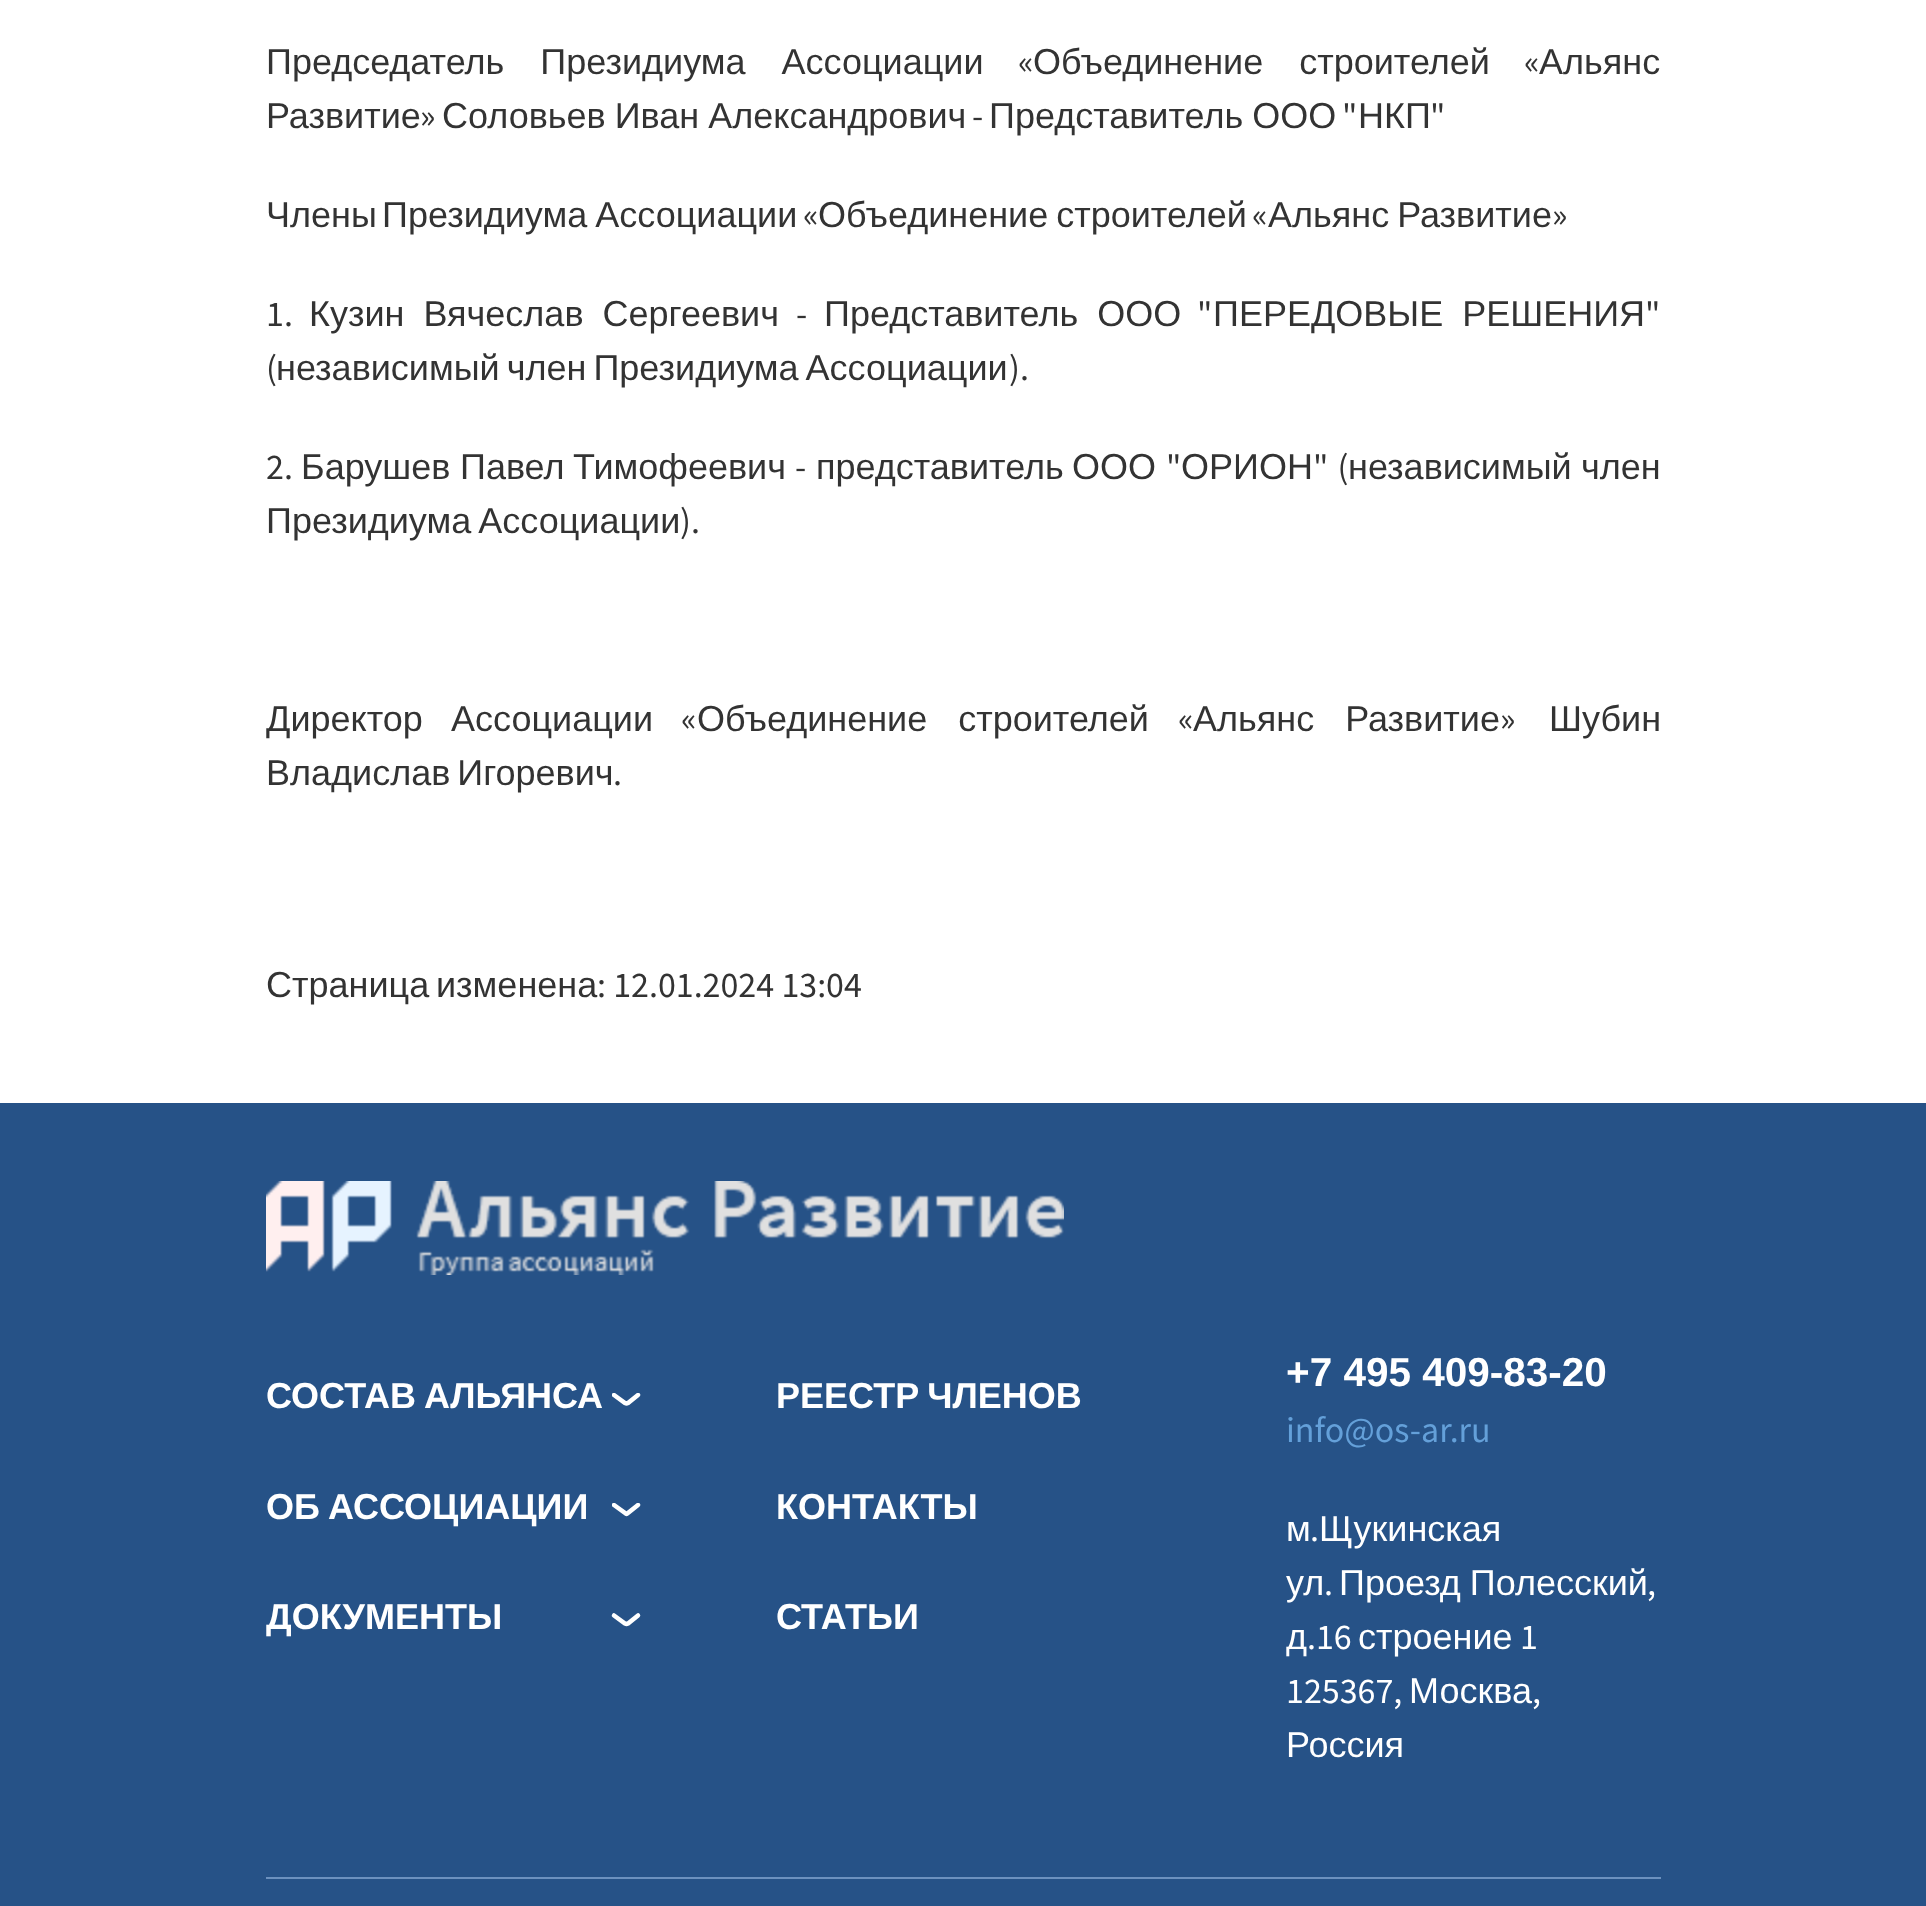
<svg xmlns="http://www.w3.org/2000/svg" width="1926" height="1906">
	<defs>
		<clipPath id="clip1"><rect x="612" y="1393" width="29" height="13" /></clipPath>
		<clipPath id="clip2"><rect x="612" y="1503" width="29" height="14" /></clipPath>
	</defs>
	<rect width="100%" height="100%" fill="#FFFFFF" />
	<text x="266" y="74" word-spacing="26" font-family="Liberation Sans" font-size="36" fill="#333333">Председатель Президиума Ассоциации</text>
	<text x="1018" y="74" font-family="Source Sans Pro" font-size="36" fill="#333333">«</text>
	<text x="1033" y="74" word-spacing="26" font-family="Liberation Sans" font-size="36" fill="#333333">Объединение строителей</text>
	<text x="1524" y="74" font-family="Source Sans Pro" font-size="36" fill="#333333">«</text>
	<g font-family="Liberation Sans" font-size="36" fill="#333333">
		<text x="1539" y="74">Альянс</text>
		<text x="266" y="128">Развитие</text>
		<text x="442" y="128" word-spacing="-1">Соловьев Иван Александрович</text>
		<text x="989" y="128" word-spacing="-1">Представитель ООО</text>
	</g>
	<text x="1342" y="128" font-family="Source Sans Pro" font-size="36" fill="#333333">"</text>
	<text x="1358" y="128" font-family="Liberation Sans" font-size="36" fill="#333333">НКП</text>
	<g font-family="Source Sans Pro" font-size="36" fill="#333333">
		<text x="1430" y="128">"</text>
		<text x="420" y="128">»</text>
		<text x="972" y="128">-</text>
	</g>
	<g font-family="Liberation Sans" font-size="36" fill="#333333">
		<text x="266" y="227">Члены</text>
		<text x="382" y="227" word-spacing="-2">Президиума Ассоциации</text>
	</g>
	<text x="803" y="227" font-family="Source Sans Pro" font-size="36" fill="#333333">«</text>
	<text x="818" y="227" word-spacing="-2" font-family="Liberation Sans" font-size="36" fill="#333333">Объединение строителей</text>
	<text x="1252" y="227" font-family="Source Sans Pro" font-size="36" fill="#333333">«</text>
	<text x="1268" y="227" word-spacing="-2" font-family="Liberation Sans" font-size="36" fill="#333333">Альянс Развитие</text>
	<g font-family="Source Sans Pro" font-size="36" fill="#333333">
		<text x="1552" y="227">»</text>
		<text x="266" y="326">1.</text>
	</g>
	<text x="309" y="326" word-spacing="9" font-family="Liberation Sans" font-size="36" fill="#333333">Кузин Вячеслав Сергеевич</text>
	<text x="796" y="326" font-family="Source Sans Pro" font-size="36" fill="#333333">-</text>
	<text x="824" y="326" word-spacing="9" font-family="Liberation Sans" font-size="36" fill="#333333">Представитель ООО</text>
	<text x="1197" y="326" font-family="Source Sans Pro" font-size="36" fill="#333333">"</text>
	<text x="1213" y="326" word-spacing="9" font-family="Liberation Sans" font-size="36" fill="#333333">ПЕРЕДОВЫЕ РЕШЕНИЯ</text>
	<g font-family="Source Sans Pro" font-size="36" fill="#333333">
		<text x="1645" y="326">"</text>
		<text x="266" y="380">(</text>
	</g>
	<text x="276" y="380" word-spacing="-3" font-family="Liberation Sans" font-size="36" fill="#333333">независимый член Президиума Ассоциации</text>
	<g font-family="Source Sans Pro" font-size="36" fill="#333333">
		<text x="1009" y="380">).</text>
		<text x="266" y="479">2.</text>
	</g>
	<g font-family="Liberation Sans" font-size="36" fill="#333333">
		<text x="301" y="479">Барушев</text>
		<text x="460" y="479">Павел</text>
		<text x="573" y="479">Тимофеевич</text>
	</g>
	<text x="795" y="479" font-family="Source Sans Pro" font-size="36" fill="#333333">-</text>
	<g font-family="Liberation Sans" font-size="36" fill="#333333">
		<text x="816" y="479">представитель</text>
		<text x="1072" y="479">ООО</text>
	</g>
	<text x="1166" y="479" font-family="Source Sans Pro" font-size="36" fill="#333333">"</text>
	<text x="1181" y="479" font-family="Liberation Sans" font-size="36" fill="#333333">ОРИОН</text>
	<text x="1313" y="479" word-spacing="2" font-family="Source Sans Pro" font-size="36" fill="#333333">" (</text>
	<g font-family="Liberation Sans" font-size="36" fill="#333333">
		<text x="1348" y="479">независимый</text>
		<text x="1581" y="479">член</text>
		<text x="266" y="533" word-spacing="-3">Президиума Ассоциации</text>
	</g>
	<text x="680" y="533" font-family="Source Sans Pro" font-size="36" fill="#333333">).</text>
	<g font-family="Liberation Sans" font-size="36" fill="#333333">
		<text x="266" y="731">Директор</text>
		<text x="451" y="731">Ассоциации</text>
	</g>
	<text x="681" y="731" font-family="Source Sans Pro" font-size="36" fill="#333333">«</text>
	<text x="697" y="731" word-spacing="21" font-family="Liberation Sans" font-size="36" fill="#333333">Объединение строителей</text>
	<text x="1178" y="731" font-family="Source Sans Pro" font-size="36" fill="#333333">«</text>
	<text x="1193" y="731" word-spacing="21" font-family="Liberation Sans" font-size="36" fill="#333333">Альянс Развитие</text>
	<text x="1500" y="731" font-family="Source Sans Pro" font-size="36" fill="#333333">»</text>
	<g font-family="Liberation Sans" font-size="36" fill="#333333">
		<text x="1549" y="731">Шубин</text>
		<text x="266" y="785" word-spacing="-3">Владислав Игоревич</text>
	</g>
	<text x="613" y="785" font-family="Source Sans Pro" font-size="36" fill="#333333">.</text>
	<g font-family="Liberation Sans" font-size="36" fill="#333333">
		<text x="266" y="997">Страница</text>
		<text x="436" y="997">изменена</text>
	</g>
	<text x="597" y="997" font-family="Source Sans Pro" font-size="36" fill="#333333">: 12.01.2024 13:04</text>
	<rect x="0" y="1103" width="1926" height="803" fill="#265287" />
	<image x="266" y="1181" width="798" height="94" href="assets/img1.png" />
	<text x="266" y="1408" word-spacing="-2" font-family="Liberation Sans" font-size="36" font-weight="700" fill="#FFFFFF">СОСТАВ АЛЬЯНСА</text>
	<g clip-path="url(#clip1)">
		<path d="M614 1395L625 1403C626 1403.5 627 1403.5 628 1403L638 1395" fill="none" stroke="#FFFFFF" stroke-width="4.5" stroke-linecap="round" />
	</g>
	<text x="266" y="1519" word-spacing="-2" font-family="Liberation Sans" font-size="36" font-weight="700" fill="#FFFFFF">ОБ АССОЦИАЦИИ</text>
	<g clip-path="url(#clip2)">
		<path d="M614 1505L625 1513C626 1514 627 1514 628 1513L638 1505" fill="none" stroke="#FFFFFF" stroke-width="4.5" stroke-linecap="round" />
	</g>
	<text x="266" y="1629" font-family="Liberation Sans" font-size="36" font-weight="700" fill="#FFFFFF">ДОКУМЕНТЫ</text>
	<path d="M614 1615.5L625 1623.5C626 1624 627 1624 628 1623.5L638 1615.5" fill="none" stroke="#FFFFFF" stroke-width="4.5" stroke-linecap="round" />
	<g font-family="Liberation Sans" font-size="36" font-weight="700" fill="#FFFFFF">
		<text x="776" y="1408" word-spacing="-2">РЕЕСТР ЧЛЕНОВ</text>
		<text x="776" y="1519">КОНТАКТЫ</text>
		<text x="776" y="1629">СТАТЬИ</text>
	</g>
	<text x="1286" y="1386" font-family="Liberation Sans" font-size="40.5" font-weight="700" fill="#FFFFFF">+7 495 409-83-20</text>
	<text x="1286" y="1442" font-family="Source Sans Pro" font-size="36" fill="#64A0D9">info@os-ar.ru</text>
	<text x="1286" y="1541" font-family="Liberation Sans" font-size="36" fill="#FFFFFF">м</text>
	<text x="1310" y="1541" font-family="Source Sans Pro" font-size="36" fill="#FFFFFF">.</text>
	<g font-family="Liberation Sans" font-size="36" fill="#FFFFFF">
		<text x="1319" y="1541">Щукинская</text>
		<text x="1286" y="1595">ул</text>
	</g>
	<text x="1324" y="1595" font-family="Source Sans Pro" font-size="36" fill="#FFFFFF">.</text>
	<text x="1339" y="1595" word-spacing="-1" font-family="Liberation Sans" font-size="36" fill="#FFFFFF">Проезд Полесский</text>
	<text x="1647" y="1595" font-family="Source Sans Pro" font-size="36" fill="#FFFFFF">,</text>
	<text x="1286" y="1649" font-family="Liberation Sans" font-size="36" fill="#FFFFFF">д</text>
	<text x="1307" y="1649" font-family="Source Sans Pro" font-size="36" fill="#FFFFFF">.16</text>
	<text x="1358" y="1649" font-family="Liberation Sans" font-size="36" fill="#FFFFFF">строение</text>
	<g font-family="Source Sans Pro" font-size="36" fill="#FFFFFF">
		<text x="1520" y="1649">1</text>
		<text x="1286" y="1703">125367,</text>
	</g>
	<text x="1409" y="1703" font-family="Liberation Sans" font-size="36" fill="#FFFFFF">Москва</text>
	<text x="1532" y="1703" font-family="Source Sans Pro" font-size="36" fill="#FFFFFF">,</text>
	<text x="1286" y="1757" font-family="Liberation Sans" font-size="36" fill="#FFFFFF">Россия</text>
	<rect x="266" y="1877" width="1395" height="2" fill="#6C91BE" />
</svg>
